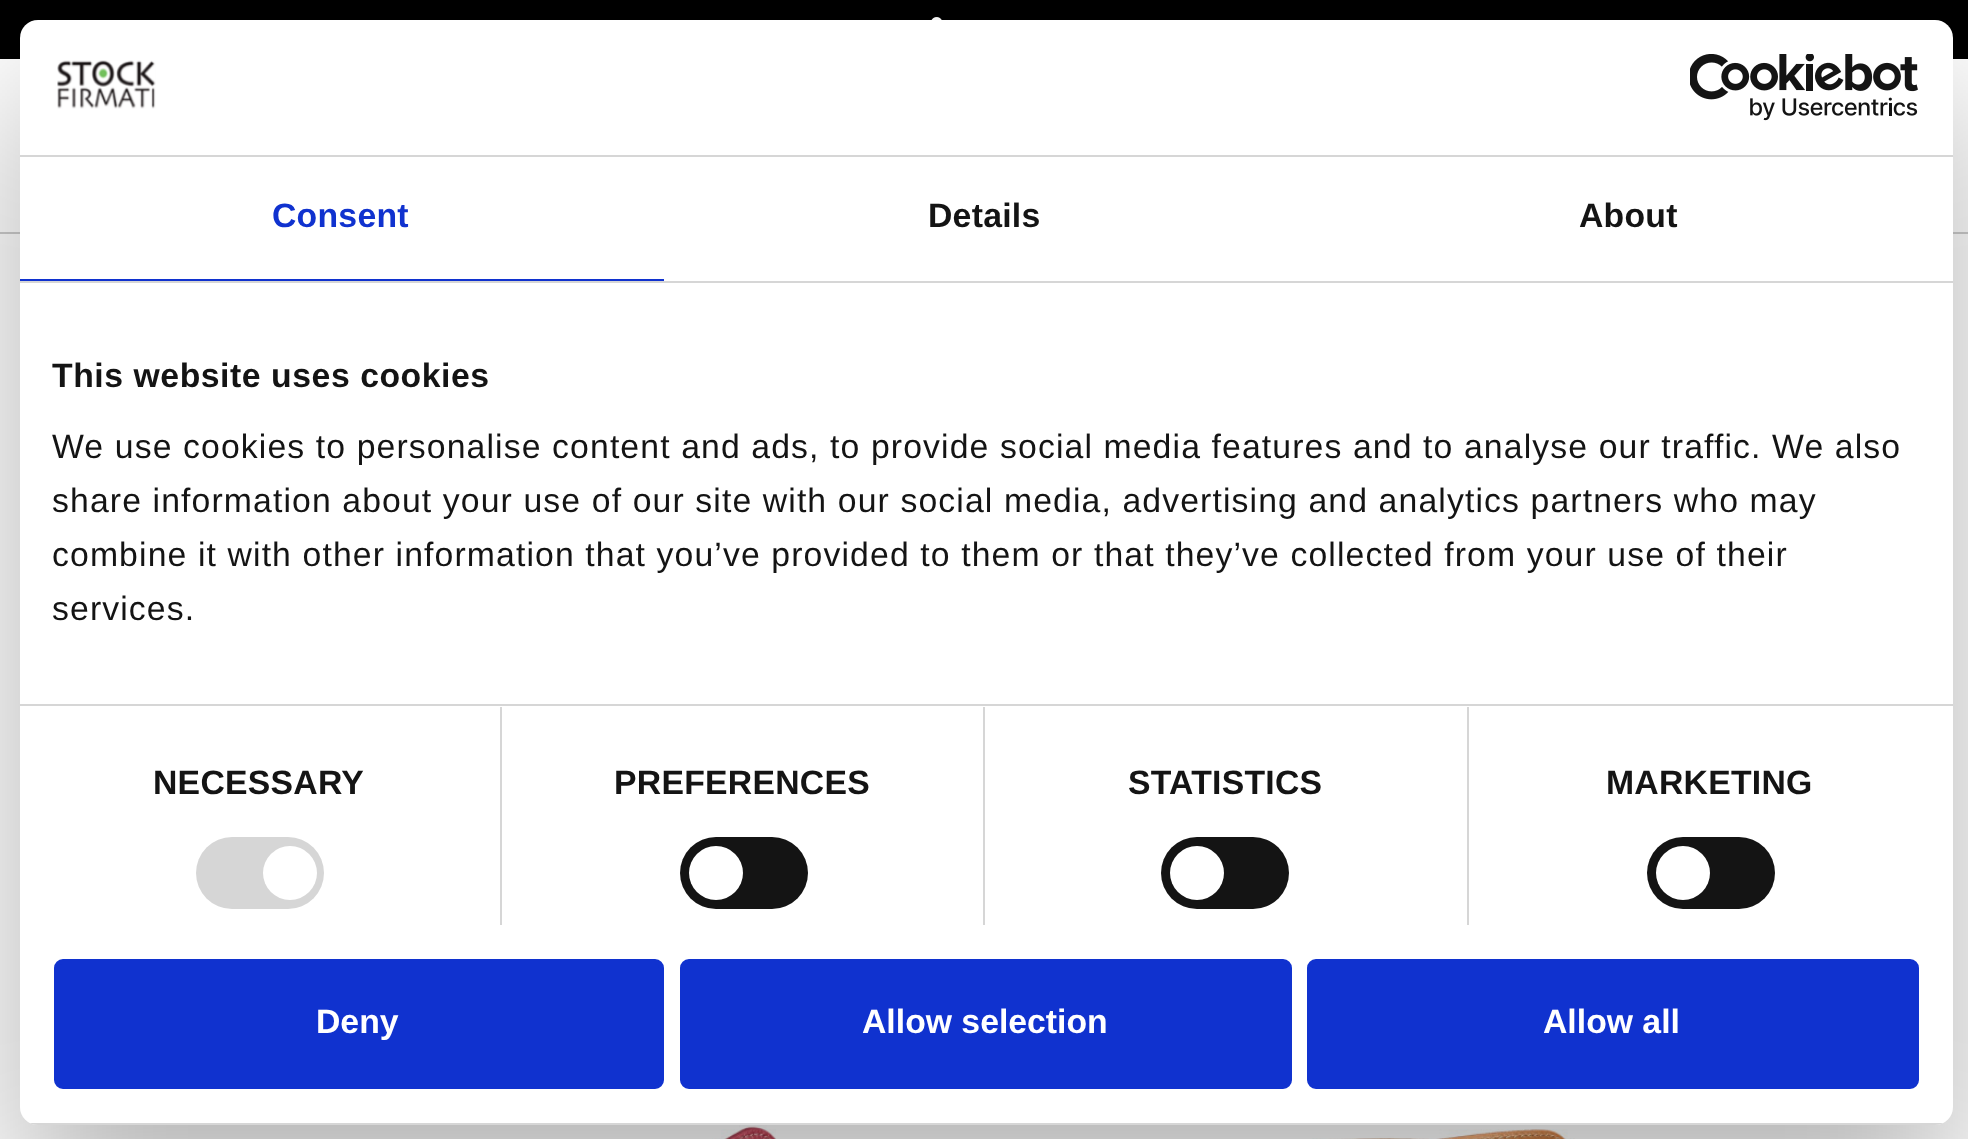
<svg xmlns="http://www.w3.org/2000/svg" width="1968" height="1139">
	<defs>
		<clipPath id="clip1"><rect x="20" y="20" width="1933" height="1105" rx="18" /></clipPath>
	</defs>
	<rect width="100%" height="100%" fill="#FFFFFF" />
	<rect x="0" y="0" width="1968" height="59" fill="#000000" />
	<image x="931" y="17" width="11" height="3" href="assets/img1.png" />
	<rect x="0" y="232" width="1968" height="2" fill="#CDCDCD" />
	<image x="712" y="1125" width="65" height="14" href="assets/img4.png" />
	<image x="1312" y="1129" width="263" height="10" href="assets/img5.png" />
	<rect x="20" y="92" width="1933" height="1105" rx="18" fill="#000000" fill-opacity="0.3" filter="blur(76.5px)" />
	<rect x="20" y="20" width="1933" height="1105" rx="18" fill="#FFFFFF" />
	<rect x="20" y="155" width="1933" height="2" fill="#D6D6D6" />
	<image x="57" y="60" width="99" height="49" href="assets/img2.png" />
	<image x="1690" y="54" width="228" height="67" href="assets/img3.png" />
	<rect x="20" y="281" width="1933" height="2" fill="#D6D6D6" />
	<rect x="20" y="279" width="644" height="2" fill="#1032CF" />
	<text x="272" y="227" font-family="Liberation Sans" font-size="33.75" font-weight="700" letter-spacing="0.25" fill="#1032CF">Consent</text>
	<g font-family="Liberation Sans" font-size="33.75" font-weight="700" letter-spacing="0.25" fill="#141414">
		<text x="928" y="227">Details</text>
		<text x="1579" y="227">About</text>
	</g>
	<rect x="20" y="704" width="1933" height="2" fill="#D6D6D6" />
	<text x="52" y="387" font-family="Liberation Sans" font-size="33.75" font-weight="700" letter-spacing="0.55" fill="#141414">This website uses cookies</text>
	<g font-family="Liberation Sans" font-size="33.75" letter-spacing="1.12" fill="#141414">
		<text x="52" y="458">We use cookies to personalise content and ads, to provide social media features and to analyse our traffic. We also</text>
		<text x="52" y="512">share information about your use of our site with our social media, advertising and analytics partners who may</text>
		<text x="52" y="566">combine it with other information that you’ve provided to them or that they’ve collected from your use of their</text>
		<text x="52" y="620">services.</text>
	</g>
	<rect x="500" y="707" width="2" height="218" fill="#D6D6D6" />
	<text x="153" y="794" font-family="Liberation Sans" font-size="33.75" font-weight="700" letter-spacing="0.25" fill="#141414">NECESSARY</text>
	<rect x="196" y="837" width="128" height="72" rx="36" fill="#D6D6D6" />
	<circle cx="290" cy="873" r="27" fill="#FFFFFF" />
	<rect x="983" y="707" width="2" height="218" fill="#D6D6D6" />
	<text x="614" y="794" font-family="Liberation Sans" font-size="33.75" font-weight="700" letter-spacing="0.25" fill="#141414">PREFERENCES</text>
	<rect x="680" y="837" width="128" height="72" rx="36" fill="#141414" />
	<circle cx="716" cy="873" r="27" fill="#FFFFFF" />
	<rect x="1467" y="707" width="2" height="218" fill="#D6D6D6" />
	<text x="1128" y="794" font-family="Liberation Sans" font-size="33.75" font-weight="700" letter-spacing="0.25" fill="#141414">STATISTICS</text>
	<rect x="1161" y="837" width="128" height="72" rx="36" fill="#141414" />
	<circle cx="1197" cy="873" r="27" fill="#FFFFFF" />
	<text x="1606" y="794" font-family="Liberation Sans" font-size="33.75" font-weight="700" letter-spacing="0.25" fill="#141414">MARKETING</text>
	<rect x="1647" y="837" width="128" height="72" rx="36" fill="#141414" />
	<circle cx="1683" cy="873" r="27" fill="#FFFFFF" />
	<g clip-path="url(#clip1)">
		<rect x="30" y="1123" width="1913" height="2" fill="#D6D6D6" />
	</g>
	<rect x="56.5" y="961.5" width="605" height="125" rx="6.5" fill="#1032CF" stroke="#1032CF" stroke-width="5" />
	<text x="316" y="1033" font-family="Liberation Sans" font-size="33.75" font-weight="700" fill="#FFFFFF">Deny</text>
	<rect x="682.5" y="961.5" width="607" height="125" rx="6.5" fill="#1032CF" stroke="#1032CF" stroke-width="5" />
	<text x="862" y="1033" font-family="Liberation Sans" font-size="33.75" font-weight="700" fill="#FFFFFF">Allow selection</text>
	<rect x="1309.5" y="961.5" width="607" height="125" rx="6.5" fill="#1032CF" stroke="#1032CF" stroke-width="5" />
	<text x="1543" y="1033" font-family="Liberation Sans" font-size="33.75" font-weight="700" fill="#FFFFFF">Allow all</text>
</svg>
